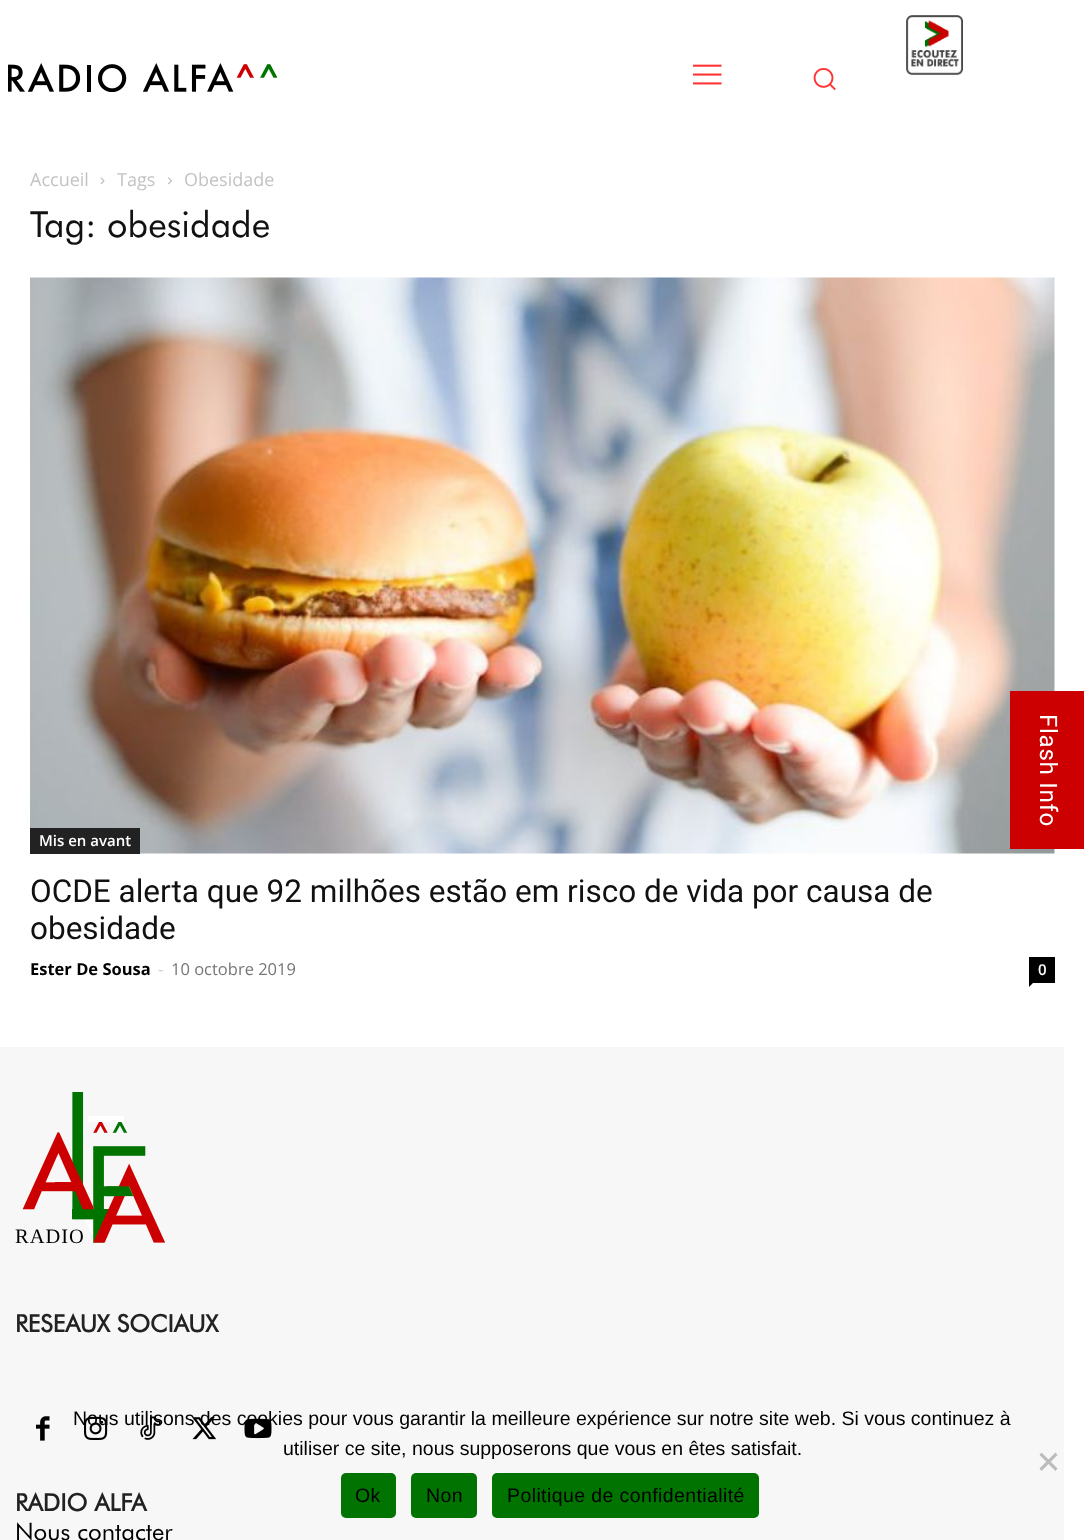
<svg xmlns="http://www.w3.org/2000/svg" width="1084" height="1540">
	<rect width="100%" height="100%" fill="#FFFFFF" />
	<image x="8" y="63" width="269" height="29" href="assets/img1.png" />
	<image x="693" y="64" width="29" height="21" href="assets/img2.png" />
	<image x="813" y="68" width="23" height="23" href="assets/img3.png" />
	<image x="906" y="15" width="57" height="60" href="assets/img4.png" />
	<text x="30" y="186" font-family="Open Sans" font-size="18" fill="#C3C3C3">Accueil</text>
	<image x="100" y="177" width="5" height="8" href="assets/img5.png" />
	<text x="117" y="186" font-family="Open Sans" font-size="18" fill="#C3C3C3">Tags</text>
	<image x="168" y="177" width="4" height="8" href="assets/img6.png" />
	<text x="184" y="186" font-family="Open Sans" font-size="18" fill="#C3C3C3">Obesidade</text>
	<text x="30" y="237" font-family="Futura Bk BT" font-size="36" fill="#111111">Tag: obesidade</text>
	<image x="30" y="277" width="1025" height="577" href="assets/img7.png" />
	<rect x="30" y="828" width="110" height="26" fill="#222222" />
	<text x="39" y="846" font-family="Open Sans" font-size="15" font-weight="600" fill="#FFFFFF">Mis en avant</text>
	<g font-family="Roboto" font-size="31.5" fill="#111111">
		<text x="30" y="902">OCDE alerta que 92 milhões estão em risco de vida por causa de</text>
		<text x="30" y="939">obesidade</text>
	</g>
	<text x="30" y="975" font-family="Open Sans" font-size="16.5" font-weight="700" fill="#000000">Ester De Sousa</text>
	<text x="158" y="975" font-family="Open Sans" font-size="16.5" fill="#CCCCCC">-</text>
	<text x="171" y="975" font-family="Open Sans" font-size="16.5" fill="#767676">10 octobre 2019</text>
	<rect x="1029" y="957" width="26" height="26" fill="#000000" />
	<text x="1038" y="975" font-family="Open Sans" font-size="15" font-weight="600" fill="#FFFFFF">0</text>
	<path d="M1029 982.5H1033.5L1029 987Z" fill="#000000" />
	<rect x="0" y="1047" width="1064" height="493" fill="#F7F7F7" />
	<image x="22" y="1092" width="143" height="151" href="assets/img8.png" />
	<text x="15" y="1243" font-family="Liberation Serif" font-size="20.5" letter-spacing="1" fill="#000000">RADIO</text>
	<text x="15" y="1332" font-family="Futura Bk BT" font-size="24" font-weight="700" fill="#222222">RESEAUX SOCIAUX</text>
	<image x="36" y="1416" width="14" height="25" href="assets/img9.png" />
	<image x="84" y="1416" width="24" height="24" href="assets/img10.png" />
	<image x="140" y="1416" width="21" height="24" href="assets/img11.png" />
	<image x="192" y="1417" width="25" height="23" href="assets/img12.png" />
	<image x="244" y="1418" width="28" height="21" href="assets/img13.png" />
	<text x="15" y="1511" font-family="Futura Bk BT" font-size="24" font-weight="700" fill="#222222">RADIO ALFA</text>
	<text x="15" y="1540" font-family="Futura Bk BT" font-size="24" fill="#000000">Nous contacter</text>
	<rect x="1010" y="691" width="74" height="158" fill="#CC0000" />
	<text x="1040" y="714" transform="rotate(90 1040 714)" font-family="Roboto" font-size="24" letter-spacing="0.75" fill="#FFFFFF">Flash Info</text>
	<g font-family="Liberation Sans" font-size="19.5" fill="#000000">
		<text x="73" y="1425">Nous utilisons des cookies pour vous garantir la meilleure expérience sur notre site web. Si vous continuez à</text>
		<text x="283" y="1455">utiliser ce site, nous supposerons que vous en êtes satisfait.</text>
	</g>
	<path d="M1055.5 1452.5L1057.5 1455L1041.5 1471L1039.5 1468.5Z" fill="#BCBCBC" />
	<path d="M1039.5 1455L1041.5 1452.5L1057.5 1468.5L1055.5 1471Z" fill="#BCBCBC" />
	<rect x="341" y="1473" width="55" height="45" rx="5" fill="#017301" />
	<text x="355" y="1502" font-family="Liberation Sans" font-size="19.5" letter-spacing="0.4" fill="#000000">Ok</text>
	<rect x="411" y="1473" width="66" height="45" rx="5" fill="#017301" />
	<text x="426" y="1502" font-family="Liberation Sans" font-size="19.5" letter-spacing="0.4" fill="#000000">Non</text>
	<rect x="492" y="1473" width="267" height="45" rx="5" fill="#017301" />
	<text x="507" y="1502" font-family="Liberation Sans" font-size="19.5" letter-spacing="0.4" fill="#000000">Politique de confidentialité</text>
</svg>
